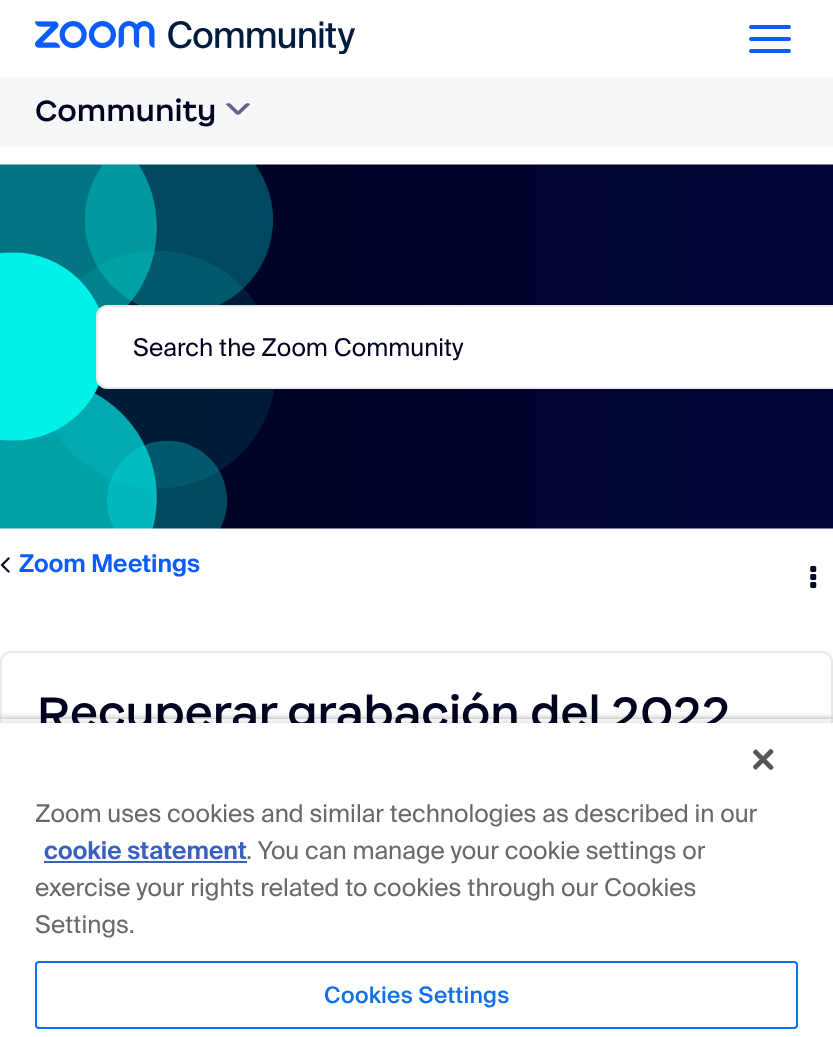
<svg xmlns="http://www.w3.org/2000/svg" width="833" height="1037">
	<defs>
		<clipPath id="clip1"><path d="M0 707H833V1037H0ZM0 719H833V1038H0Z" clip-rule="evenodd" /></clipPath>
	</defs>
	<rect width="100%" height="100%" fill="#FFFFFF" />
	<image x="35" y="21" width="320" height="33" href="assets/img1.png" />
	<rect x="749" y="25" width="42" height="4" rx="2" fill="#0B5CFF" />
	<rect x="749" y="37" width="42" height="4" rx="2" fill="#0B5CFF" />
	<rect x="749" y="49" width="42" height="4" rx="2" fill="#0B5CFF" />
	<rect x="0" y="77" width="833" height="70" fill="#F6F7F9" />
	<text x="35" y="121" font-family="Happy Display" font-size="28" font-weight="600" fill="#00031F">Community</text>
	<image x="226" y="103" width="24" height="12" href="assets/img2.png" />
	<image x="0" y="164" width="833" height="365" href="assets/img3.png" />
	<path d="M107 305H833V389H107C101 389 96 384 96 378V316C96 310 101 305 107 305Z" fill="#FFFFFF" />
	<rect x="97" y="306" width="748" height="82" rx="10" fill="none" stroke="#232333" stroke-opacity="0.1" stroke-width="2" />
	<text x="133" y="356" font-family="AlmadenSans" font-size="24.5" fill="#00031F">Search the Zoom Community</text>
	<image x="0" y="557" width="10" height="16" href="assets/img4.png" />
	<text x="19" y="572" font-family="AlmadenSans" font-size="24.5" font-weight="600" fill="#0B5CFF">Zoom Meetings</text>
	<image x="810" y="566" width="7" height="22" href="assets/img5.png" />
	<rect x="1" y="652" width="831" height="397" rx="10" fill="none" stroke="#E9E9EB" stroke-width="2" />
	<text x="37" y="728" font-family="Happy Display" font-size="42" font-weight="600" fill="#00031F">Recuperar grabación del 2022</text>
	<g clip-path="url(#clip1)">
		<rect x="0" y="719" width="833" height="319" fill="#000000" fill-opacity="0.35" filter="blur(3.5px)" />
	</g>
	<rect x="0" y="723" width="833" height="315" fill="#000000" fill-opacity="0.2" filter="blur(3.5px)" />
	<rect x="0" y="723" width="833" height="314" fill="#FFFFFF" />
	<image x="753" y="749" width="21" height="21" href="assets/img6.png" />
	<text x="35" y="822" font-family="AlmadenSans" font-size="24.5" fill="#696969">Zoom uses cookies and similar technologies as described in our</text>
	<text x="44" y="859" font-family="AlmadenSans" font-size="24.5" font-weight="600" fill="#3860BE">cookie statement</text>
	<rect x="44" y="861" width="203" height="2" fill="#3860BE" />
	<g font-family="AlmadenSans" font-size="24.5" fill="#696969">
		<text x="246" y="859">. You can manage your cookie settings or</text>
		<text x="35" y="896">exercise your rights related to cookies through our Cookies</text>
		<text x="35" y="933">Settings.</text>
	</g>
	<rect x="36" y="962" width="761" height="66" rx="3" fill="none" stroke="#0E71EB" stroke-width="2" />
	<text x="324" y="1003" font-family="AlmadenSans" font-size="22.75" font-weight="500" letter-spacing="0.25" fill="#0E71EB">Cookies Settings</text>
</svg>
